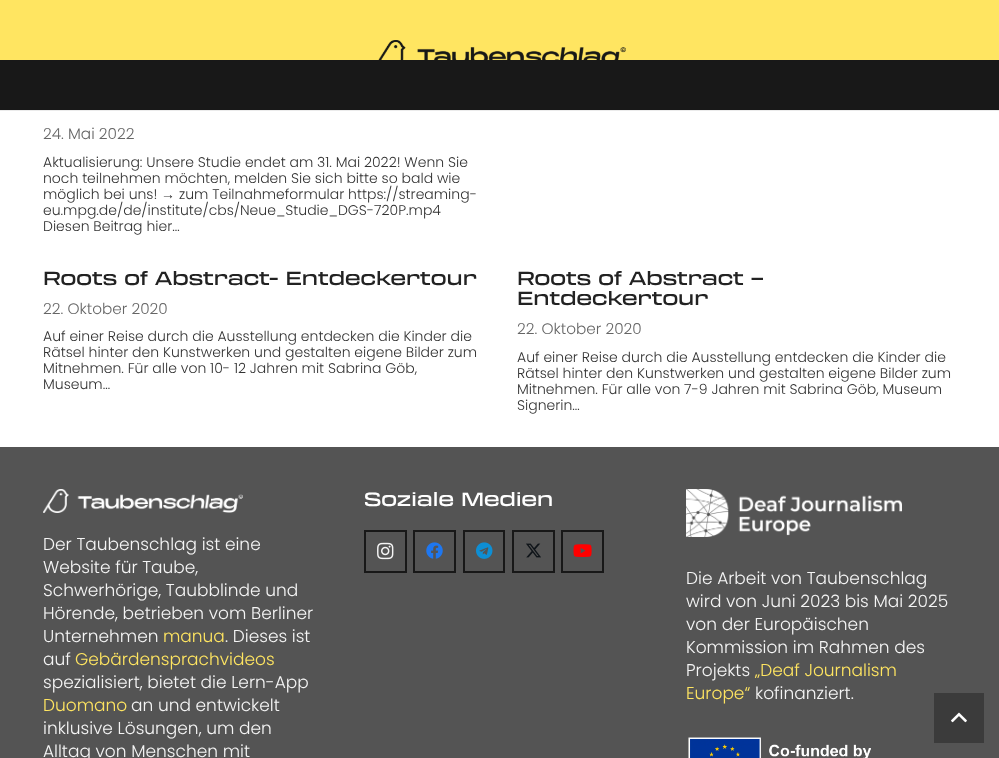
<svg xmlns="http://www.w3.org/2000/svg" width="999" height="758">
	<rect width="100%" height="100%" fill="#FFFFFF" />
	<rect x="0" y="0" width="999" height="60" fill="#FFE561" />
	<image x="378" y="40" width="248" height="20" href="assets/img1.png" />
	<rect x="0" y="110" width="999" height="1" fill="#000000" fill-opacity="0.08" />
	<rect x="0" y="60" width="999" height="50" fill="#181818" />
	<text x="43" y="139" font-family="Poppins" font-size="15.25" font-weight="300" fill="#666666">24. Mai 2022</text>
	<g font-family="Poppins" font-size="14" font-weight="300" fill="#333333">
		<text x="43" y="167">Aktualisierung: Unsere Studie endet am 31. Mai 2022! Wenn Sie</text>
		<text x="43" y="183">noch teilnehmen möchten, melden Sie sich bitte so bald wie</text>
		<text x="43" y="199">möglich bei uns!</text>
	</g>
	<text x="161" y="199" font-family="Liberation Sans" font-size="14" fill="#333333">→</text>
	<g font-family="Poppins" font-size="14" font-weight="300" fill="#333333">
		<text x="179" y="199">zum Teilnahmeformular https://streaming-</text>
		<text x="43" y="215">eu.mpg.de/de/institute/cbs/Neue_Studie_DGS-720P.mp4</text>
		<text x="43" y="231">Diesen Beitrag hier…</text>
	</g>
	<text x="43" y="285" font-family="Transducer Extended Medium" font-size="18.7" font-weight="500" fill="#222222">Roots of Abstract- Entdeckertour</text>
	<text x="43" y="314" font-family="Poppins" font-size="15.25" font-weight="300" fill="#666666">22. Oktober 2020</text>
	<g font-family="Poppins" font-size="14" font-weight="300" fill="#333333">
		<text x="43" y="341">Auf einer Reise durch die Ausstellung entdecken die Kinder die</text>
		<text x="43" y="357">Rätsel hinter den Kunstwerken und gestalten eigene Bilder zum</text>
		<text x="43" y="373">Mitnehmen. Für alle von 10- 12 Jahren mit Sabrina Göb,</text>
		<text x="43" y="389">Museum…</text>
	</g>
	<g font-family="Transducer Extended Medium" font-size="18.7" font-weight="500" fill="#222222">
		<text x="517" y="285">Roots of Abstract –</text>
		<text x="517" y="305">Entdeckertour</text>
	</g>
	<text x="517" y="334" font-family="Poppins" font-size="15.25" font-weight="300" fill="#666666">22. Oktober 2020</text>
	<g font-family="Poppins" font-size="14" font-weight="300" fill="#333333">
		<text x="517" y="362">Auf einer Reise durch die Ausstellung entdecken die Kinder die</text>
		<text x="517" y="378">Rätsel hinter den Kunstwerken und gestalten eigene Bilder zum</text>
		<text x="517" y="394">Mitnehmen. Für alle von 7-9 Jahren mit Sabrina Göb, Museum</text>
		<text x="517" y="410">Signerin…</text>
	</g>
	<rect x="0" y="447" width="999" height="311" fill="#545454" />
	<text x="364" y="506" font-family="Transducer Extended Medium" font-size="18.7" font-weight="500" fill="#FFFFFF">Soziale Medien</text>
	<rect x="365" y="531" width="41" height="41" fill="none" stroke="#181818" stroke-width="2" />
	<image x="377" y="542" width="17" height="18" href="assets/img2.png" />
	<rect x="414" y="531" width="41" height="41" fill="none" stroke="#181818" stroke-width="2" />
	<image x="426" y="542" width="17" height="17" href="assets/img3.png" />
	<rect x="464" y="531" width="40" height="41" fill="none" stroke="#181818" stroke-width="2" />
	<image x="476" y="542" width="17" height="17" href="assets/img4.png" />
	<rect x="513" y="531" width="41" height="41" fill="none" stroke="#181818" stroke-width="2" />
	<image x="526" y="543" width="15" height="15" href="assets/img5.png" />
	<rect x="562" y="531" width="41" height="41" fill="none" stroke="#181818" stroke-width="2" />
	<image x="573" y="544" width="19" height="13" href="assets/img6.png" />
	<image x="43" y="489" width="200" height="24" href="assets/img7.png" />
	<g font-family="Poppins" font-size="17" font-weight="300" fill="#F5F5F5">
		<text x="43" y="550">Der Taubenschlag ist eine</text>
		<text x="43" y="573">Website für Taube,</text>
		<text x="43" y="596">Schwerhörige, Taubblinde und</text>
		<text x="43" y="619">Hörende, betrieben vom Berliner</text>
		<text x="43" y="642">Unternehmen</text>
	</g>
	<text x="163" y="642" font-family="Poppins" font-size="17" font-weight="300" fill="#FFE561">manua</text>
	<g font-family="Poppins" font-size="17" font-weight="300" fill="#F5F5F5">
		<text x="225" y="642">. Dieses ist</text>
		<text x="43" y="665">auf</text>
	</g>
	<text x="75" y="665" font-family="Poppins" font-size="17" font-weight="300" fill="#FFE561">Gebärdensprachvideos</text>
	<text x="43" y="688" font-family="Poppins" font-size="17" font-weight="300" fill="#F5F5F5">spezialisiert, bietet die Lern-App</text>
	<text x="43" y="711" font-family="Poppins" font-size="17" font-weight="300" fill="#FFE561">Duomano</text>
	<g font-family="Poppins" font-size="17" font-weight="300" fill="#F5F5F5">
		<text x="131" y="711">an und entwickelt</text>
		<text x="43" y="734">inklusive Lösungen, um den</text>
		<text x="43" y="757">Alltag von Menschen mit</text>
	</g>
	<image x="686" y="489" width="216" height="48" href="assets/img8.png" />
	<g font-family="Poppins" font-size="17" font-weight="300" fill="#F5F5F5">
		<text x="686" y="584">Die Arbeit von Taubenschlag</text>
		<text x="686" y="607">wird von Juni 2023 bis Mai 2025</text>
		<text x="686" y="630">von der Europäischen</text>
		<text x="686" y="653">Kommission im Rahmen des</text>
		<text x="686" y="676">Projekts</text>
	</g>
	<g font-family="Poppins" font-size="17" font-weight="300" fill="#FFE561">
		<text x="755" y="676">„Deaf Journalism</text>
		<text x="686" y="699">Europe“</text>
	</g>
	<text x="755" y="699" font-family="Poppins" font-size="17" font-weight="300" fill="#F5F5F5">kofinanziert.</text>
	<image x="688" y="737" width="183" height="21" href="assets/img9.png" />
	<rect x="934" y="693" width="50" height="50" fill="#3B3B3B" />
	<image x="951" y="712" width="16" height="11" href="assets/img10.png" />
</svg>
